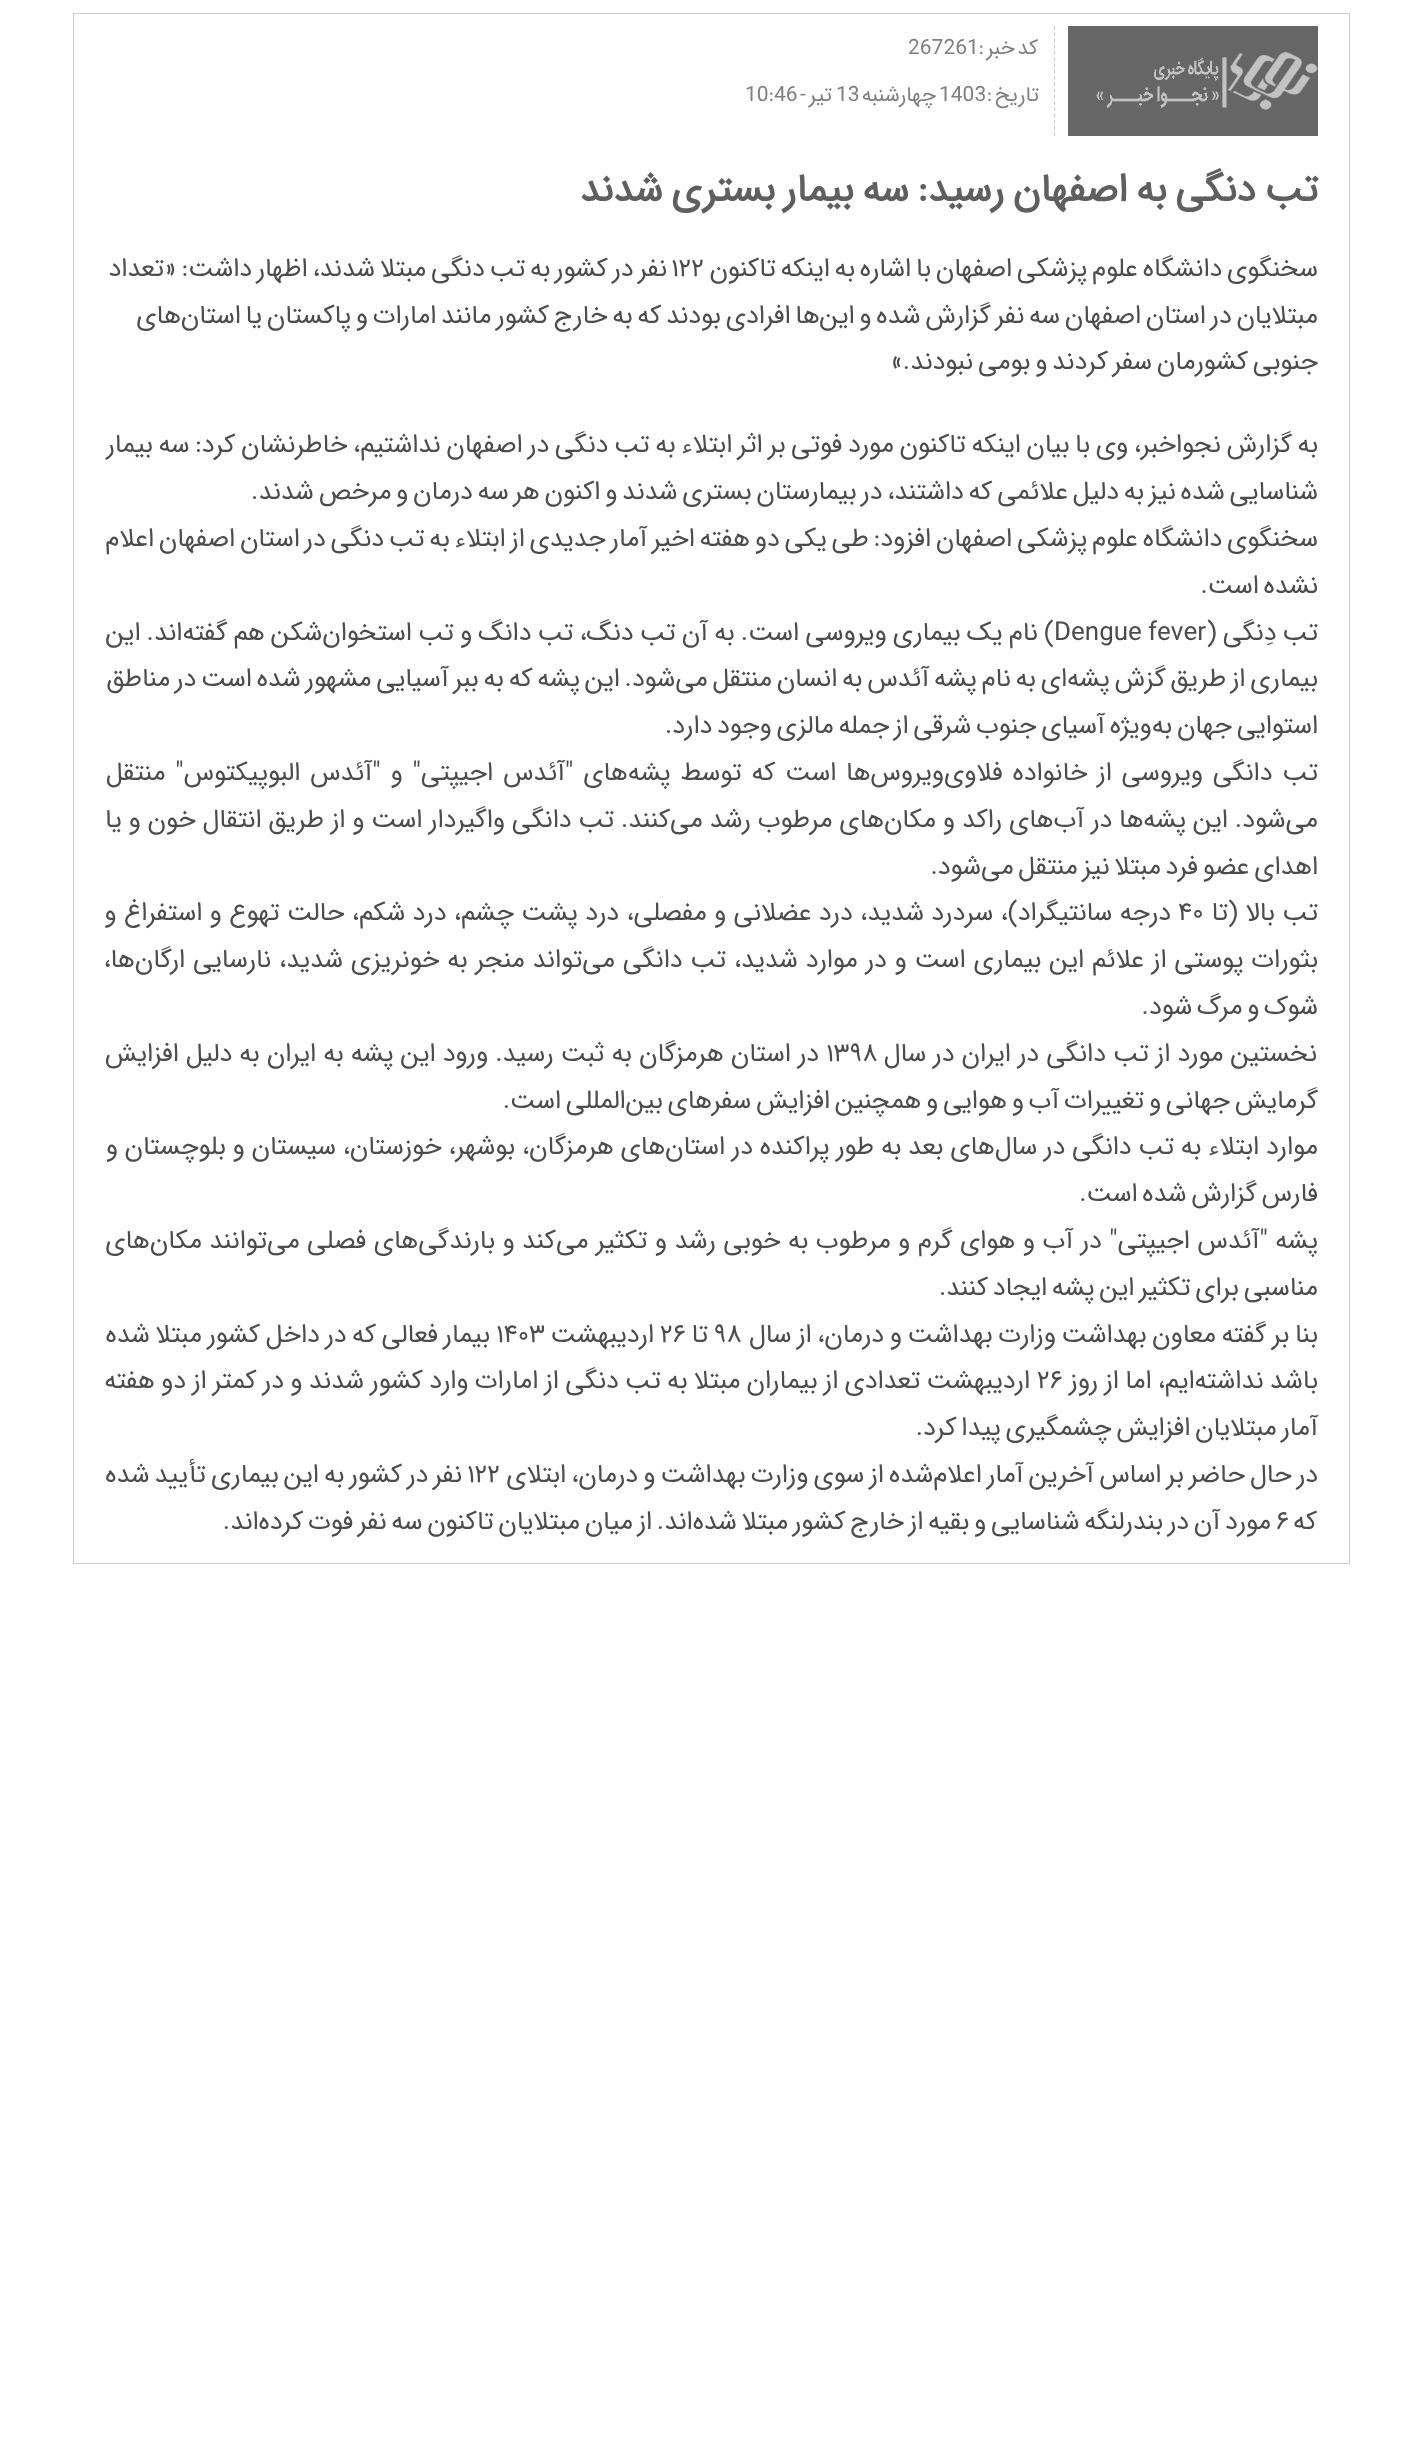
<svg xmlns="http://www.w3.org/2000/svg" width="1422" height="2444">
	<rect width="100%" height="100%" fill="#FFFFFF" />
	<rect x="73.5" y="13.5" width="1276" height="1550" fill="none" stroke="#CCCCCC" />
	<path d="M1054.5 26V136" fill="none" stroke="#CCCCCC" stroke-width="1.2" stroke-dasharray="3.75 2.5" />
	<rect x="1068" y="26" width="250" height="110" fill="#666666" />
	<image x="1096" y="52" width="222" height="58" href="assets/img1.png" />
	<text x="1038" y="54" word-spacing="-4" font-family="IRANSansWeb" font-size="21" direction="rtl" fill="#808080">کد خبر :</text>
	<text x="908" y="54" font-family="IRANSansWeb" font-size="21" fill="#808080">267261</text>
	<text x="1039" y="101" word-spacing="-4" font-family="IRANSansWeb" font-size="21" direction="rtl" fill="#808080">تاریخ :</text>
	<text x="939" y="101" font-family="IRANSansWeb" font-size="21" fill="#808080">1403</text>
	<text x="936" y="101" font-family="IRANSansWeb" font-size="21" direction="rtl" fill="#808080">چهارشنبه</text>
	<text x="836" y="101" font-family="IRANSansWeb" font-size="21" fill="#808080">13</text>
	<text x="832" y="101" word-spacing="-3.1" font-family="IRANSansWeb" font-size="21" direction="rtl" fill="#808080">تير -</text>
	<text x="745" y="101" font-family="IRANSansWeb" font-size="21" fill="#808080">10:46</text>
	<text x="1318" y="201" word-spacing="-3.1" font-family="IRANSansWeb" font-size="39" font-weight="700" direction="rtl" fill="#5F5F5F">تب دنگی به اصفهان رسید: سه بیمار بستری شدند</text>
	<g font-family="IRANSansWeb" font-size="26" direction="rtl" fill="#4C4C4C">
		<text x="1318" y="276" word-spacing="-3.1">سخنگوی دانشگاه علوم پزشکی اصفهان با اشاره به اینکه تاکنون</text>
		<text x="667" y="276" word-spacing="-3.1">نفر در کشور به تب دنگی مبتلا شدند، اظهار داشت: «تعداد</text>
	</g>
	<text x="671" y="276" font-family="IRANSansWeb" font-size="26" fill="#4C4C4C">۱۲۲</text>
	<g font-family="IRANSansWeb" font-size="26" direction="rtl" fill="#4C4C4C">
		<text x="1318" y="323" word-spacing="-3.1">مبتلایان در استان اصفهان سه نفر گزارش شده و این‌ها افرادی بودند که به خارج کشور مانند امارات و پاکستان یا استان‌های</text>
		<text x="1318" y="369" word-spacing="-3.1">جنوبی کشورمان سفر کردند و بومی نبودند.»</text>
		<text x="1318" y="452" word-spacing="-2.3">به گزارش نجواخبر، وی با بیان اینکه تاکنون مورد فوتی بر اثر ابتلاء به تب دنگی در اصفهان نداشتیم، خاطرنشان کرد: سه بیمار</text>
		<text x="1318" y="499" word-spacing="-3.1">شناسایی شده نیز به دلیل علائمی که داشتند، در بیمارستان بستری شدند و اکنون هر سه درمان و مرخص شدند.</text>
		<text x="1318" y="546" word-spacing="-3.1">سخنگوی دانشگاه علوم پزشکی اصفهان افزود: طی یکی دو هفته اخیر آمار جدیدی از ابتلاء به تب دنگی در استان اصفهان اعلام</text>
		<text x="1318" y="593" word-spacing="-3.1">نشده است.</text>
		<text x="1318" y="640" word-spacing="-2">تب دِنگی (</text>
		<text x="1054" y="640" word-spacing="-1.7">) نام یک بیماری ویروسی است. به آن تب دنگ، تب دانگ و تب استخوان‌شکن هم گفته‌اند. این</text>
	</g>
	<text x="1054" y="640" word-spacing="-1.7" font-family="IRANSansWeb" font-size="26" fill="#4C4C4C">Dengue fever</text>
	<g font-family="IRANSansWeb" font-size="26" direction="rtl" fill="#4C4C4C">
		<text x="1318" y="686" word-spacing="-3.1">بیماری از طریق گزش پشه‌ای به نام پشه آئدس به انسان منتقل می‌شود. این پشه که به ببر آسیایی مشهور شده است در مناطق</text>
		<text x="1318" y="733" word-spacing="-3.1">استوایی جهان به‌ویژه آسیای جنوب شرقی از جمله مالزی وجود دارد.</text>
		<text x="1318" y="780" word-spacing="2">تب دانگی ویروسی از خانواده فلاوی‌ویروس‌ها است که توسط پشه‌های "آئدس اجیپتی" و "آئدس البوپیکتوس" منتقل</text>
		<text x="1318" y="827" word-spacing="-1">می‌شود. این پشه‌ها در آب‌های راکد و مکان‌های مرطوب رشد می‌کنند. تب دانگی واگیردار است و از طریق انتقال خون و یا</text>
		<text x="1318" y="874" word-spacing="-3.1">اهدای عضو فرد مبتلا نیز منتقل می‌شود.</text>
		<text x="1318" y="920" word-spacing="-0.5">تب بالا (تا</text>
		<text x="1171" y="920" word-spacing="-0.5">درجه سانتیگراد)، سردرد شدید، درد عضلانی و مفصلی، درد پشت چشم، درد شکم، حالت تهوع و استفراغ و</text>
	</g>
	<text x="1178" y="920" font-family="IRANSansWeb" font-size="26" fill="#4C4C4C">۴۰</text>
	<g font-family="IRANSansWeb" font-size="26" direction="rtl" fill="#4C4C4C">
		<text x="1318" y="967">بثورات پوستی از علائم این بیماری است و در موارد شدید، تب دانگی می‌تواند منجر به خونریزی شدید، نارسایی ارگان‌ها،</text>
		<text x="1318" y="1014" word-spacing="-3.1">شوک و مرگ شود.</text>
		<text x="1317" y="1061" word-spacing="-0.75">نخستین مورد از تب دانگی در ایران در سال</text>
		<text x="819" y="1061" word-spacing="-0.75">در استان هرمزگان به ثبت رسید. ورود این پشه به ایران به دلیل افزایش</text>
	</g>
	<text x="826" y="1061" font-family="IRANSansWeb" font-size="26" fill="#4C4C4C">۱۳۹۸</text>
	<g font-family="IRANSansWeb" font-size="26" direction="rtl" fill="#4C4C4C">
		<text x="1318" y="1108" word-spacing="-3.1">گرمایش جهانی و تغییرات آب و هوایی و همچنین افزایش سفر‌های بین‌المللی است.</text>
		<text x="1318" y="1154" word-spacing="-1.1">موارد ابتلاء به تب دانگی در سال‌های بعد به طور پراکنده در استان‌های هرمزگان، بوشهر، خوزستان، سیستان و بلوچستان و</text>
		<text x="1318" y="1201" word-spacing="-3.1">فارس گزارش شده است.</text>
		<text x="1318" y="1248" word-spacing="-0.4">پشه "آئدس اجیپتی" در آب و هوای گرم و مرطوب به خوبی رشد و تکثیر می‌کند و بارندگی‌های فصلی می‌توانند مکان‌های</text>
		<text x="1318" y="1295" word-spacing="-3.1">مناسبی برای تکثیر این پشه ایجاد کنند.</text>
		<text x="1318" y="1342" word-spacing="-2.25">بنا بر گفته معاون بهداشت وزارت بهداشت و درمان، از سال</text>
	</g>
	<text x="714" y="1342" font-family="IRANSansWeb" font-size="26" fill="#4C4C4C">۹۸</text>
	<text x="708" y="1342" font-family="IRANSansWeb" font-size="26" direction="rtl" fill="#4C4C4C">تا</text>
	<text x="660" y="1342" font-family="IRANSansWeb" font-size="26" fill="#4C4C4C">۲۶</text>
	<g font-family="IRANSansWeb" font-size="26" direction="rtl" fill="#4C4C4C">
		<text x="654" y="1342">اردیبهشت</text>
		<text x="490" y="1342" word-spacing="-2.25">بیمار فعالی که در داخل کشور مبتلا شده</text>
	</g>
	<text x="496" y="1342" font-family="IRANSansWeb" font-size="26" fill="#4C4C4C">۱۴۰۳</text>
	<g font-family="IRANSansWeb" font-size="26" direction="rtl" fill="#4C4C4C">
		<text x="1318" y="1388" word-spacing="-1.6">باشد نداشته‌ایم، اما از روز</text>
		<text x="1030" y="1388" word-spacing="-1.6">اردیبهشت تعدادی از بیماران مبتلا به تب دنگی از امارات وارد کشور شدند و در کمتر از دو هفته</text>
	</g>
	<text x="1037" y="1388" font-family="IRANSansWeb" font-size="26" fill="#4C4C4C">۲۶</text>
	<g font-family="IRANSansWeb" font-size="26" direction="rtl" fill="#4C4C4C">
		<text x="1318" y="1435" word-spacing="-3.1">آمار مبتلایان افزایش چشمگیری پیدا کرد.</text>
		<text x="1318" y="1482" word-spacing="-2.75">در حال حاضر بر اساس آخرین آمار اعلام‌شده از سوی وزارت بهداشت و درمان، ابتلای</text>
		<text x="462" y="1482" word-spacing="-2.75">نفر در کشور به این بیماری تأیید شده</text>
	</g>
	<text x="467" y="1482" font-family="IRANSansWeb" font-size="26" fill="#4C4C4C">۱۲۲</text>
	<g font-family="IRANSansWeb" font-size="26" direction="rtl" fill="#4C4C4C">
		<text x="1317" y="1529">که</text>
		<text x="1271" y="1529" word-spacing="-3.1">مورد آن در بندرلنگه شناسایی و بقیه از خارج کشور مبتلا شده‌اند. از میان مبتلایان تاکنون سه نفر فوت کرده‌اند.</text>
	</g>
	<text x="1276" y="1529" font-family="IRANSansWeb" font-size="26" fill="#4C4C4C">۶</text>
</svg>
